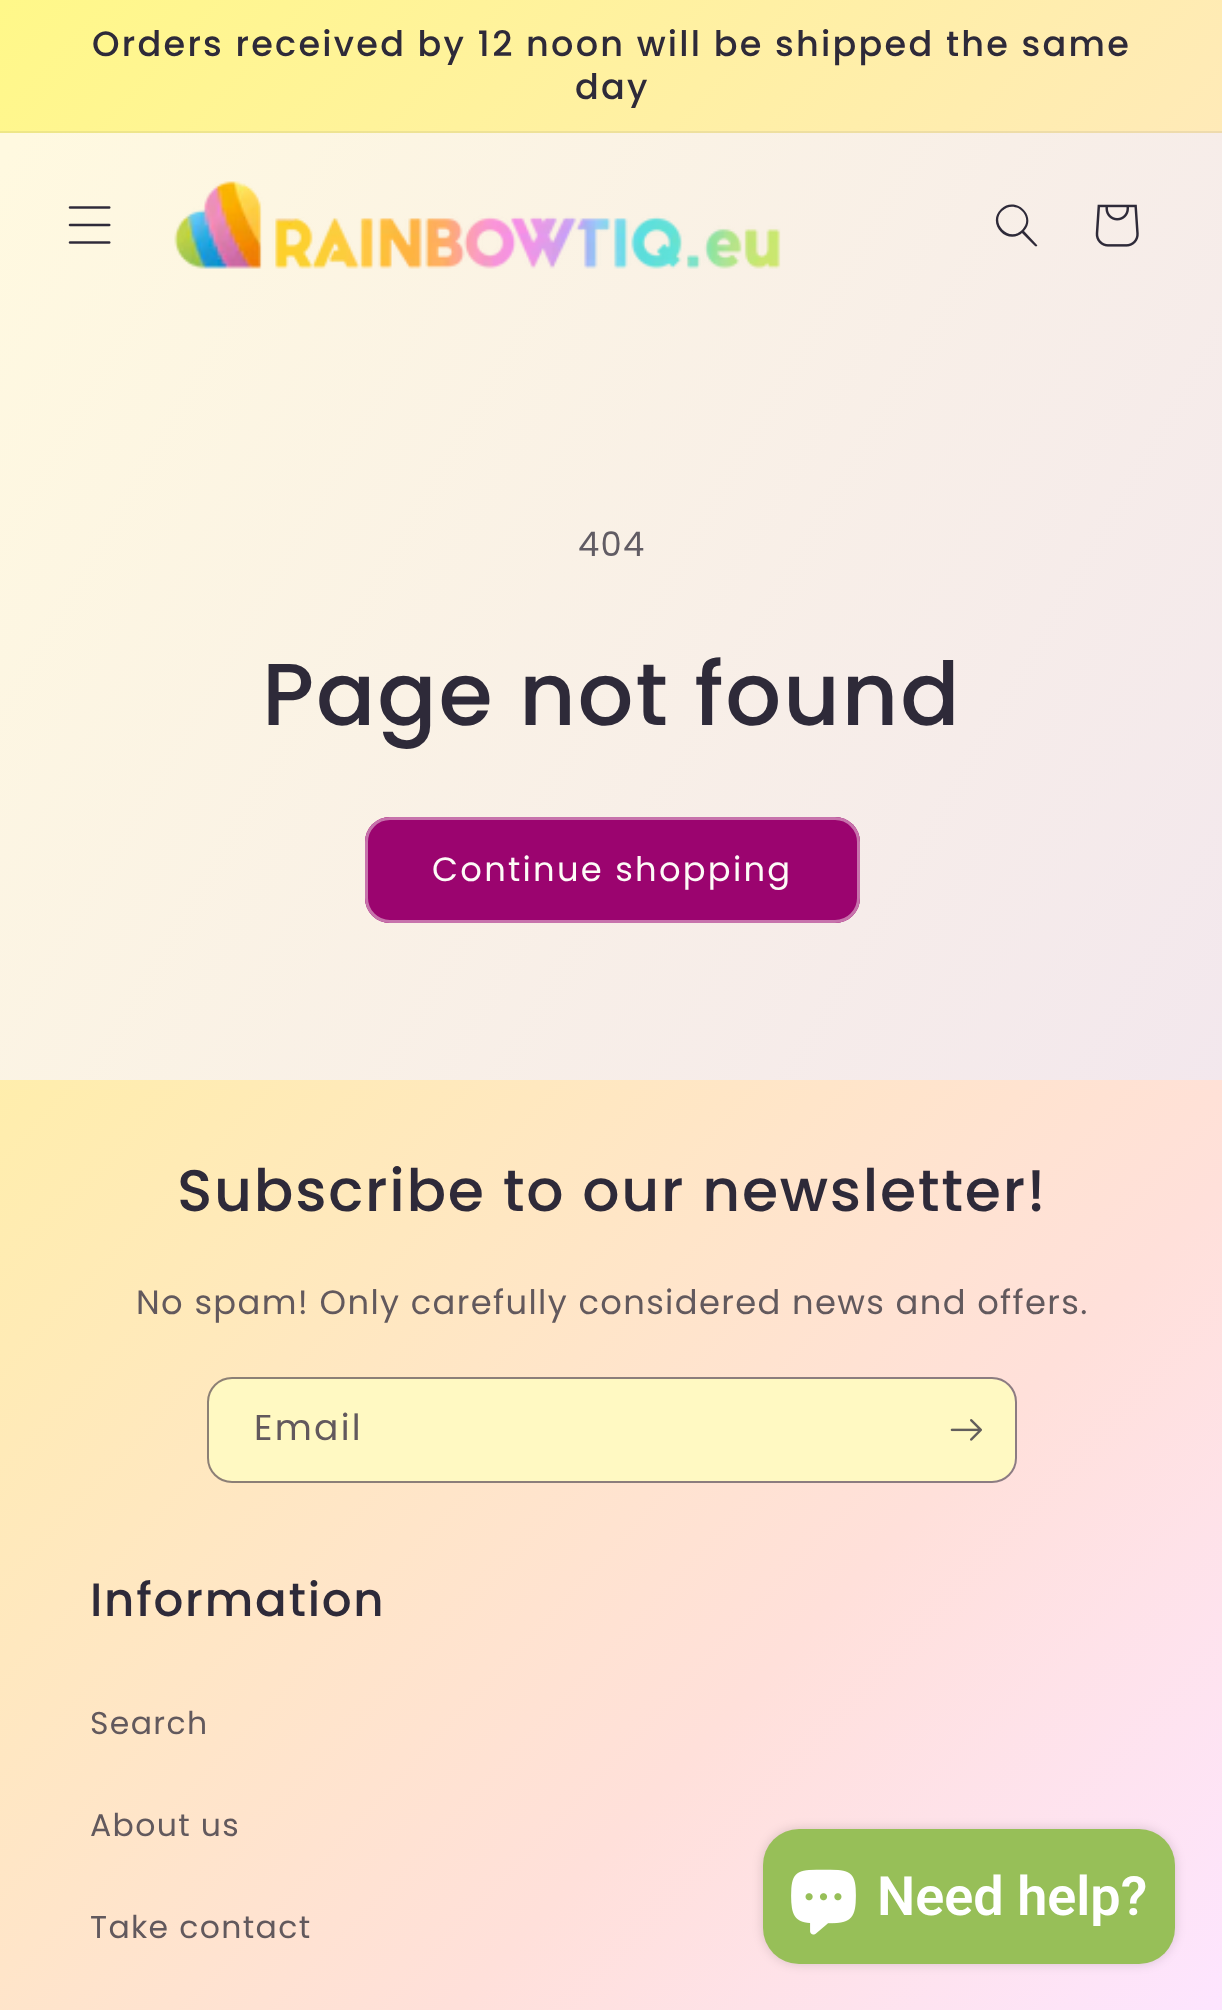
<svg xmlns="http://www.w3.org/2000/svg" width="1222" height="2010">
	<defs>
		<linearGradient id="g1" gradientUnits="userSpaceOnUse" x1="-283" y1="489" x2="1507" y2="1522"><stop offset="0.04" stop-color="#FFF9E0" /><stop offset="1" stop-color="#EFE2F1" /></linearGradient>
		<linearGradient id="g2" gradientUnits="userSpaceOnUse" x1="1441" y1="1779" x2="-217" y2="233"><stop offset="0" stop-color="#FDE5FF" /><stop offset="0.25" stop-color="#FFE0DA" /><stop offset="1" stop-color="#FFF889" /></linearGradient>
		<linearGradient id="g3" gradientUnits="userSpaceOnUse" x1="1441" y1="1779" x2="-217" y2="233"><stop offset="0" stop-color="#ECD6EF" /><stop offset="0.25" stop-color="#EED1CD" /><stop offset="1" stop-color="#EEE883" /></linearGradient>
	</defs>
	<rect width="100%" height="100%" fill="#FFFFFF" />
	<rect x="0" y="133" width="1222" height="947" fill="url(#g1)" />
	<rect x="0" y="0" width="1222" height="131" fill="url(#g2)" />
	<rect x="0" y="131" width="1222" height="2" fill="url(#g3)" />
	<g font-family="Poppins" font-size="35.1" font-weight="500" letter-spacing="2.25" fill="#2E2A39">
		<text x="92" y="56">Orders received by 12 noon will be shipped the same</text>
		<text x="575" y="99">day</text>
	</g>
	<image x="68" y="206" width="43" height="38" href="assets/img1.png" />
	<image x="174" y="181" width="607" height="88" href="assets/img2.png" />
	<path d="M1022 230C1009 243 990 223 1002 211C1015 198 1035 217 1022 230M1022 233C1007 246 986 223 1001 209C1015 195 1038 216 1024 231L1037 245C1038 246 1036 247 1035 246Z" fill="#2E2A39" fill-rule="evenodd" />
	<image x="1095" y="204" width="44" height="43" href="assets/img3.png" />
	<text x="578" y="556" font-family="Poppins" font-size="33.75" letter-spacing="1.35" fill="#615C64">404</text>
	<text x="262" y="725" font-family="Poppins" font-size="87.75" font-weight="500" letter-spacing="1.75" fill="#2E2A39">Page not found</text>
	<rect x="365" y="817" width="495" height="106" rx="25" fill="#9B046F" />
	<rect x="366" y="818" width="493" height="104" rx="24" fill="none" stroke="#9B046F" stroke-width="2" />
	<rect x="366.5" y="818.5" width="492" height="103" rx="23.5" fill="none" stroke="#FDFBF7" stroke-opacity="0.45" stroke-width="3" />
	<text x="432" y="881" font-family="Poppins" font-size="33.75" letter-spacing="2.25" fill="#FDFBF7">Continue shopping</text>
	<rect x="0" y="1080" width="1222" height="416" fill="url(#g2)" />
	<text x="177" y="1211" font-family="Poppins" font-size="58.5" font-weight="500" letter-spacing="1.75" fill="#2E2A39">Subscribe to our newsletter!</text>
	<text x="136" y="1314" font-family="Poppins" font-size="33.75" letter-spacing="1.35" fill="#62595D">No spam! Only carefully considered news and offers.</text>
	<rect x="209" y="1379" width="806" height="102" rx="23" fill="#FFF9C2" />
	<rect x="208" y="1378" width="808" height="104" rx="24" fill="none" stroke="#2E2A39" stroke-opacity="0.55" stroke-width="2" />
	<text x="254" y="1440" font-family="Poppins" font-size="36" letter-spacing="2.25" fill="#62595D">Email</text>
	<image x="950" y="1419" width="32" height="22" href="assets/img4.png" />
	<rect x="0" y="1496" width="1222" height="514" fill="url(#g2)" />
	<text x="90" y="1616" font-family="Poppins" font-size="46.75" font-weight="500" letter-spacing="1.75" fill="#2E2A39">Information</text>
	<g font-family="Poppins" font-size="31.5" letter-spacing="1.35" fill="#62595D">
		<text x="90" y="1734">Search</text>
		<text x="90" y="1836">About us</text>
		<text x="90" y="1938">Take contact</text>
	</g>
	<rect x="763" y="1829" width="412" height="135" rx="36" fill="#000000" fill-opacity="0.15" filter="blur(5.5px)" />
	<rect x="763" y="1829" width="412" height="135" rx="36" fill="#97BF58" />
	<image x="791" y="1869" width="65" height="66" href="assets/img5.png" />
	<text x="877" y="1915" font-family="Roboto" font-size="54" font-weight="600" fill="#FFFFFF">Need help?</text>
</svg>
